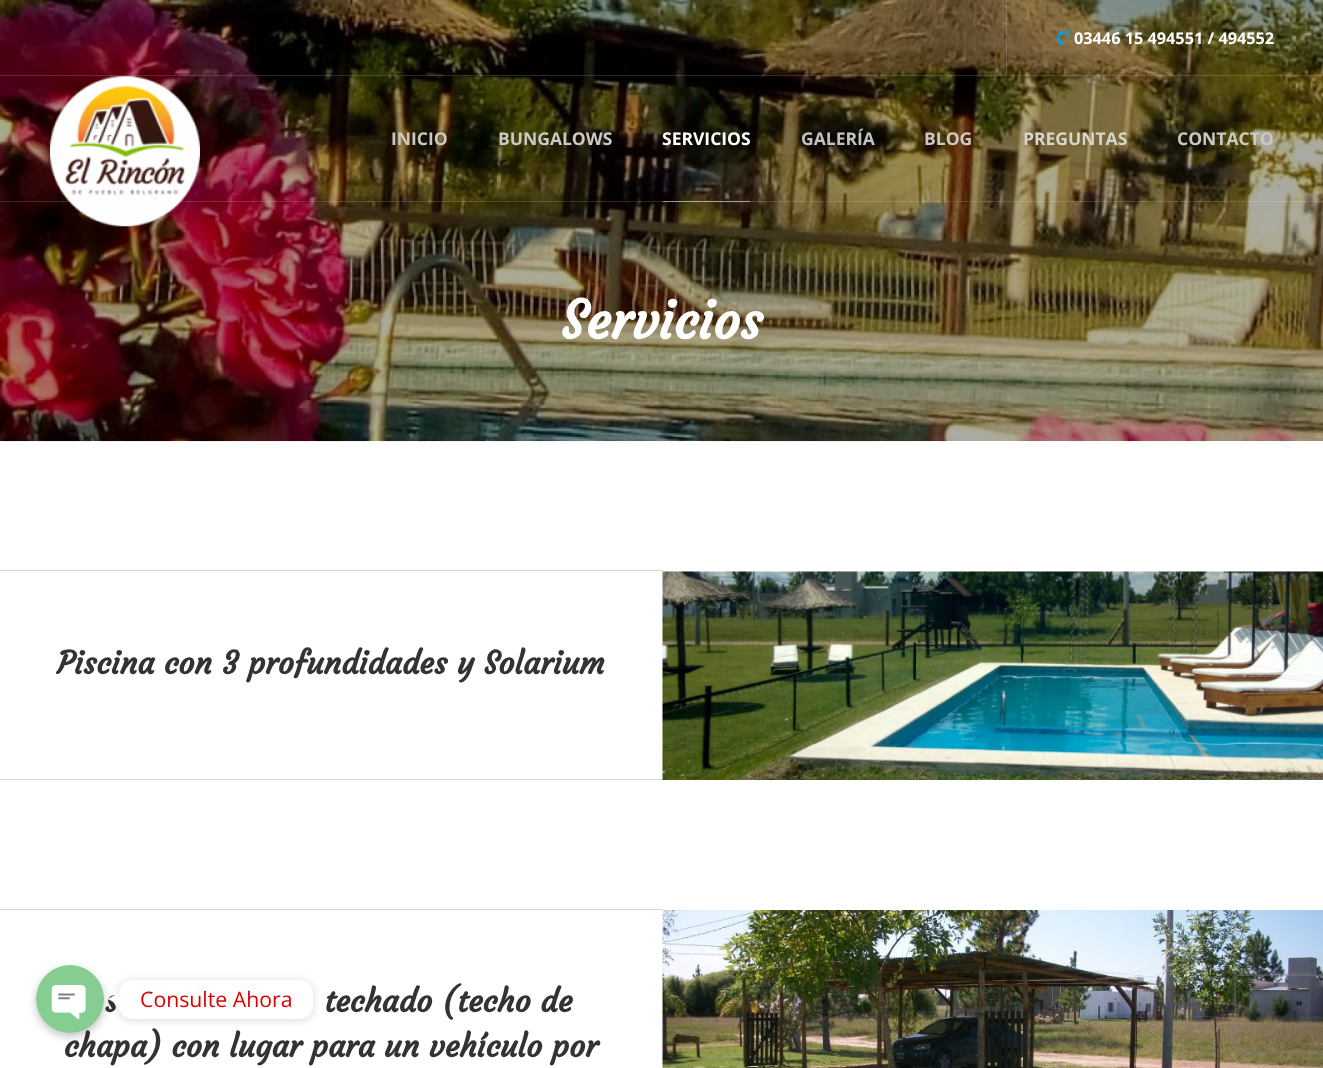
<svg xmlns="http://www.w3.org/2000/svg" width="1323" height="1068">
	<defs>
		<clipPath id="clip1"><path d="M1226 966H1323V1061H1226ZM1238.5 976H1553.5C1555 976 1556 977 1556 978.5V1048.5C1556 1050 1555 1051 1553.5 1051H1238.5C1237 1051 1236 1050 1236 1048.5V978.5C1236 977 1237 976 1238.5 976Z" clip-rule="evenodd" /></clipPath>
	</defs>
	<rect width="100%" height="100%" fill="#FFFFFF" />
	<image x="0" y="0" width="1323" height="442" href="assets/img1.png" />
	<rect x="0" y="75" width="1323" height="1" fill="#FFFFFF" fill-opacity="0.15" />
	<rect x="1006" y="0" width="1" height="75" fill="#FFFFFF" fill-opacity="0.15" />
	<image x="1057" y="29" width="13" height="17" href="assets/img2.png" />
	<text x="1074" y="44" font-family="Open Sans" font-size="16.25" font-weight="700" fill="#FFFFFF">03446 15 494551 / 494552</text>
	<rect x="0" y="201" width="1323" height="1" fill="#FFFFFF" fill-opacity="0.15" />
	<image x="50" y="76" width="150" height="151" href="assets/img3.png" />
	<g font-family="Open Sans" font-size="17.5" font-weight="700" fill="#CCC9C4">
		<text x="391" y="145">INICIO</text>
		<text x="498" y="145">BUNGALOWS</text>
	</g>
	<rect x="663" y="201" width="87" height="1" fill="#FFFFFF" fill-opacity="0.5" />
	<text x="662" y="145" font-family="Open Sans" font-size="17.5" font-weight="700" fill="#FFFFFF">SERVICIOS</text>
	<text x="801" y="145" font-family="Open Sans" font-size="17.5" font-weight="700" fill="#C3C2C1">GALERÍA</text>
	<text x="924" y="145" font-family="Open Sans" font-size="17.5" font-weight="700" fill="#CCC9C4">BLOG</text>
	<text x="1023" y="145" font-family="Open Sans" font-size="17.5" font-weight="700" fill="#D8D5CC">PREGUNTAS</text>
	<text x="1177" y="145" font-family="Open Sans" font-size="17.5" font-weight="700" fill="#CCC9C4">CONTACTO</text>
	<text x="561" y="339" font-family="Courgette" font-size="52.5" font-weight="700" fill="#FFFFFF">Servicios</text>
	<rect x="0" y="570" width="663" height="1" fill="#D4D4D4" />
	<rect x="0" y="779" width="663" height="1" fill="#D4D4D4" />
	<text x="57" y="674" font-family="Courgette" font-size="31.25" font-weight="700" fill="#333333">Piscina con 3 profundidades y Solarium</text>
	<image x="662" y="571" width="661" height="209" href="assets/img4.png" />
	<rect x="0" y="909" width="663" height="1" fill="#D4D4D4" />
	<g font-family="Courgette" font-size="31.25" font-weight="700" fill="#333333">
		<text x="105" y="1012">s</text>
		<text x="324" y="1012">techado (techo de</text>
		<text x="64" y="1057">chapa) con lugar para un vehículo por</text>
	</g>
	<image x="662" y="910" width="661" height="158" href="assets/img5.png" />
	<g clip-path="url(#clip1)">
		<rect x="1236" y="976" width="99" height="75" rx="2.5" fill="#808080" filter="blur(3px)" />
	</g>
	<rect x="36" y="969" width="68" height="67" rx="33.5" fill="#000000" fill-opacity="0.25" filter="blur(4px)" />
	<image x="36" y="965" width="68" height="68" href="assets/img6.png" />
	<rect x="119" y="981" width="194" height="39" rx="13" fill="#000000" fill-opacity="0.15" filter="blur(5px)" />
	<rect x="119" y="980" width="194" height="39" rx="13" fill="#FFFFFF" />
	<text x="140" y="1007" font-family="Open Sans" font-size="21.25" fill="#DD0000">Consulte Ahora</text>
	<path d="M120 992.5V1005L107.5 999Z" fill="#FFFFFF" />
</svg>
